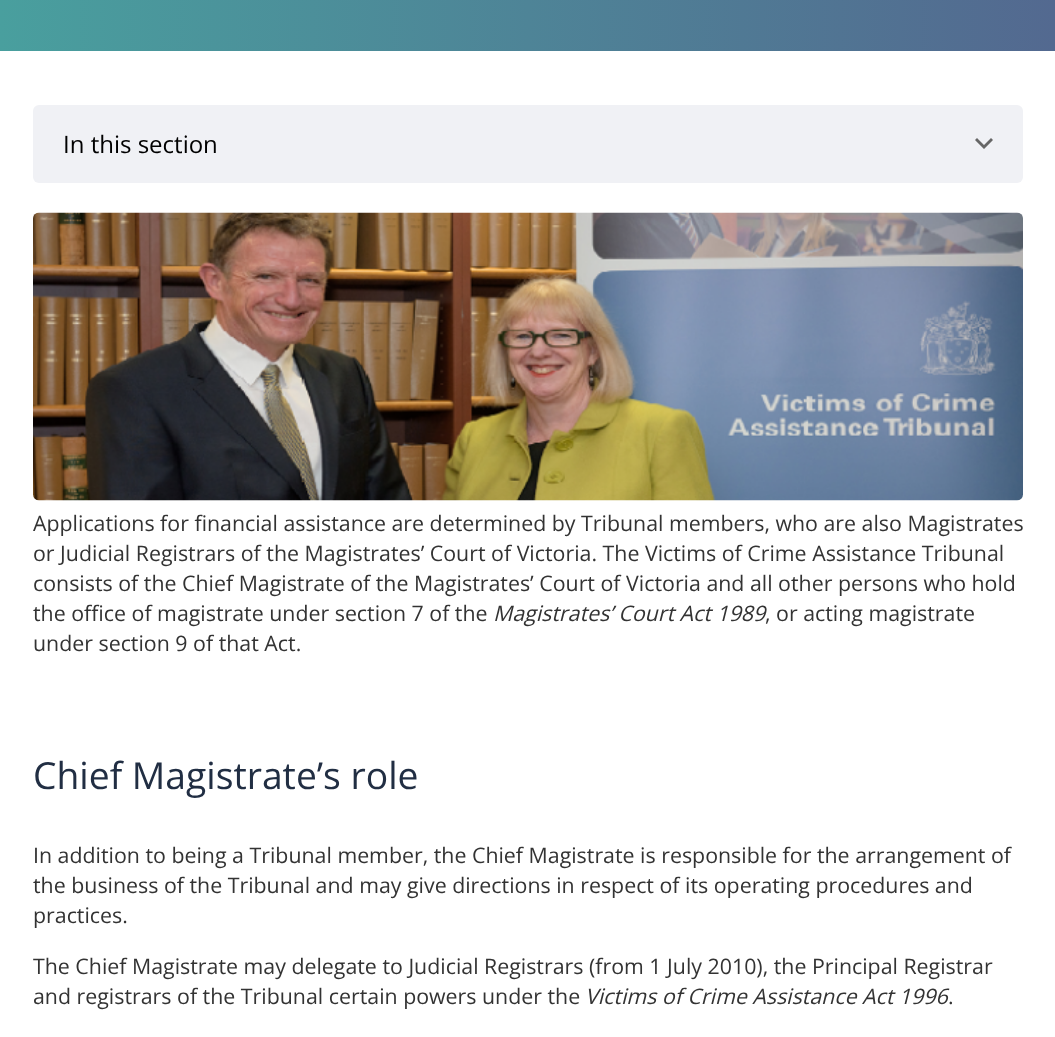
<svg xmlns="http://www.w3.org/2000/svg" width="1055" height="1037">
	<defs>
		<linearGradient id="g1" gradientUnits="userSpaceOnUse" x1="0" y1="-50" x2="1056" y2="-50"><stop offset="0" stop-color="#499F9E" /><stop offset="1" stop-color="#536990" /></linearGradient>
	</defs>
	<rect width="100%" height="100%" fill="#FFFFFF" />
	<rect x="0" y="0" width="1055" height="51" fill="url(#g1)" />
	<rect x="33" y="105" width="990" height="78" rx="6" fill="#F0F1F5" />
	<path d="M993 140L991 138L984 145L977 138L975 140L984 149Z" fill="#666666" fill-rule="evenodd" />
	<text x="63" y="153" font-family="Open Sans" font-size="24" fill="#000000">In this section</text>
	<image x="33" y="212" width="990" height="289" href="assets/img1.png" />
	<g font-family="Open Sans" font-size="21.35" fill="#333333">
		<text x="33" y="531">Applications for financial assistance are determined by Tribunal members, who are also Magistrates</text>
		<text x="33" y="561">or Judicial Registrars of the Magistrates’ Court of Victoria. The Victims of Crime Assistance Tribunal</text>
		<text x="33" y="591">consists of the Chief Magistrate of the Magistrates’ Court of Victoria and all other persons who hold</text>
		<text x="33" y="621">the office of magistrate under section 7 of the</text>
	</g>
	<text x="493" y="621" font-family="Open Sans" font-size="21.35" font-style="italic" fill="#333333">Magistrates’ Court Act 1989</text>
	<g font-family="Open Sans" font-size="21.35" fill="#333333">
		<text x="765" y="621">, or acting magistrate</text>
		<text x="33" y="651">under section 9 of that Act.</text>
	</g>
	<text x="33" y="789" font-family="Open Sans" font-size="37.25" fill="#212E43">Chief Magistrate’s role</text>
	<g font-family="Open Sans" font-size="21.35" fill="#333333">
		<text x="33" y="863">In addition to being a Tribunal member, the Chief Magistrate is responsible for the arrangement of</text>
		<text x="33" y="893">the business of the Tribunal and may give directions in respect of its operating procedures and</text>
		<text x="33" y="923">practices.</text>
		<text x="33" y="974">The Chief Magistrate may delegate to Judicial Registrars (from 1 July 2010), the Principal Registrar</text>
		<text x="33" y="1004">and registrars of the Tribunal certain powers under the</text>
	</g>
	<text x="585" y="1004" font-family="Open Sans" font-size="21.35" font-style="italic" fill="#333333">Victims of Crime Assistance Act 1996</text>
	<text x="948" y="1004" font-family="Open Sans" font-size="21.35" fill="#333333">.</text>
</svg>
